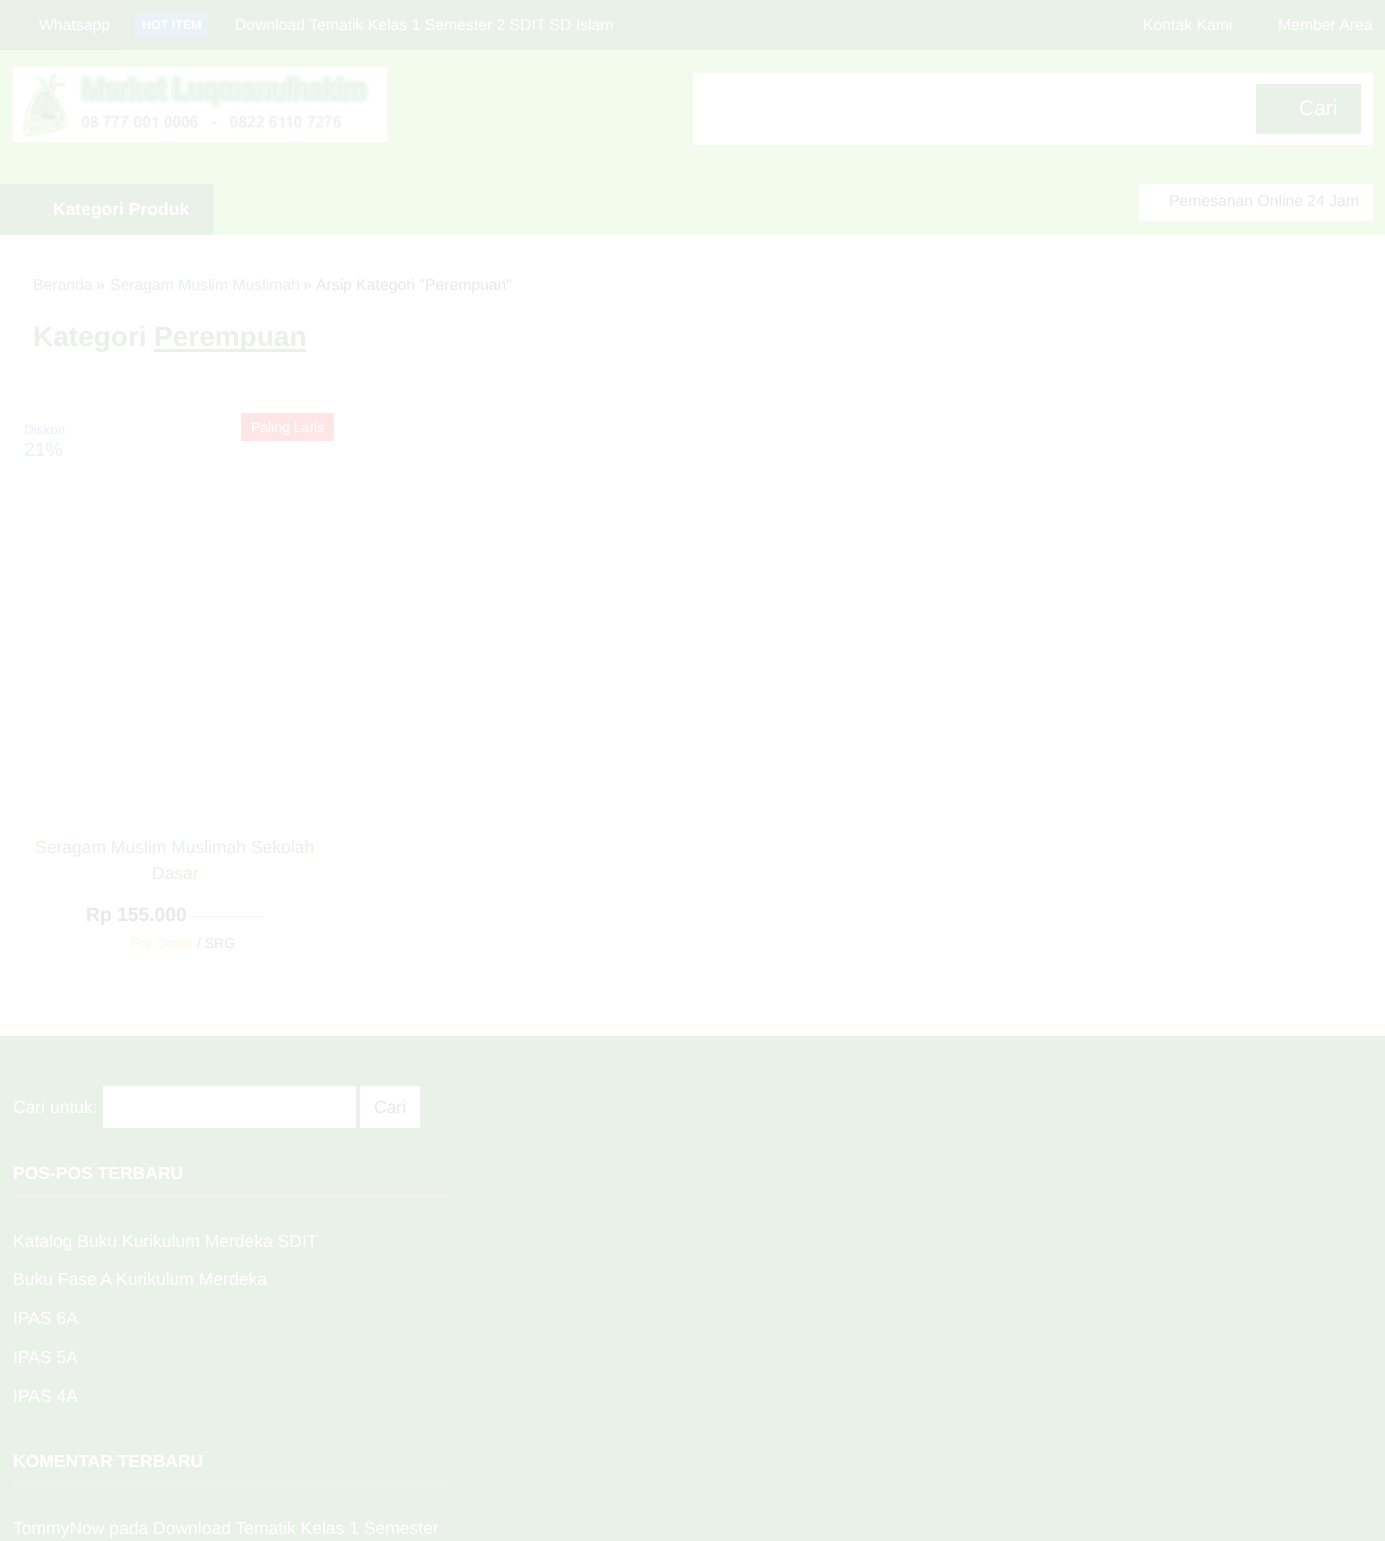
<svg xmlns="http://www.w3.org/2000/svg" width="1385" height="1541">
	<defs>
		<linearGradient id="g1" gradientUnits="userSpaceOnUse" x1="1256" y1="220" x2="1256" y2="185"><stop offset="0" stop-color="#FFFFFF" /><stop offset="1" stop-color="#FFFFFF" /></linearGradient>
	</defs>
	<rect width="100%" height="100%" fill="#F2FBEC" />
	<rect x="123" y="0" width="1262" height="50" fill="#EAF1E8" />
	<rect x="0" y="0" width="123" height="50" fill="#EAF0E8" />
	<text x="39" y="30" font-family="Liberation Sans" font-size="15.75" fill="#FFFFFF">Whatsapp</text>
	<rect x="135" y="13" width="73" height="25" fill="#E9F1F9" />
	<text x="142" y="29" font-family="Liberation Sans" font-size="12.5" font-weight="700" fill="#FFFFFF">HOT ITEM</text>
	<g font-family="Liberation Sans" font-size="15.75" fill="#FFFFFF">
		<text x="235" y="30">Download Tematik Kelas 1 Semester 2 SDIT SD Islam</text>
		<text x="1143" y="30">Kontak Kami</text>
		<text x="1278" y="30">Member Area</text>
	</g>
	<image x="12" y="67" width="376" height="75" href="assets/img1.png" />
	<rect x="693.5" y="73.5" width="679" height="71" fill="#FFFFFF" stroke="#FEFEFE" />
	<rect x="1256" y="84" width="105" height="50" fill="#EAF1E8" />
	<text x="1299" y="115" font-family="Liberation Sans" font-size="21" fill="#FFFFFF">Cari</text>
	<rect x="1140" y="185" width="232" height="35" fill="url(#g1)" />
	<rect x="1139.5" y="184.5" width="233" height="36" fill="none" stroke="#FEFEFE" />
	<text x="1169" y="206" font-family="Liberation Sans" font-size="15.75" fill="#E9E9E9">Pemesanan Online 24 Jam</text>
	<rect x="0" y="184" width="213" height="51" fill="#EAF1E8" />
	<text x="53" y="215" font-family="Liberation Sans" font-size="17.5" font-weight="700" fill="#FFFFFF">Kategori Produk</text>
	<rect x="0" y="241" width="1385" height="795" fill="#FFFFFF" />
	<rect x="0" y="235" width="1385" height="6" fill="#FEFEFE" />
	<text x="33" y="290" font-family="Liberation Sans" font-size="15.75" fill="#EAF1E8">Beranda</text>
	<text x="96" y="290" font-family="Liberation Sans" font-size="15.75" fill="#E9E9E9">»</text>
	<text x="110" y="290" font-family="Liberation Sans" font-size="15.75" fill="#EAF1E8">Seragam Muslim Muslimah</text>
	<g font-family="Liberation Sans" font-size="15.75" fill="#E9E9E9">
		<text x="303" y="290">»</text>
		<text x="316" y="290">Arsip Kategori "Perempuan"</text>
	</g>
	<text x="33" y="346" font-family="Liberation Sans" font-size="28" font-weight="700" fill="#EAF1E8">Kategori</text>
	<rect x="154" y="349" width="152" height="3" fill="#EAF1E8" />
	<text x="154" y="346" font-family="Liberation Sans" font-size="28" font-weight="700" fill="#EAF1E8">Perempuan</text>
	<text x="24" y="434" font-family="Liberation Sans" font-size="13.5" fill="#E9F1F9">Diskon</text>
	<text x="24" y="456" font-family="Liberation Sans" font-size="19.25" fill="#E9F1F9">21%</text>
	<rect x="241" y="413" width="93" height="28" fill="#FFE6E6" />
	<text x="251" y="432" font-family="Liberation Sans" font-size="14" fill="#FFFFFF">Paling Laris</text>
	<g font-family="Liberation Sans" font-size="17.5" fill="#EAF1E8">
		<text x="35" y="853">Seragam Muslim Muslimah Sekolah</text>
		<text x="152" y="879">Dasar</text>
	</g>
	<text x="86" y="921" font-family="Liberation Sans" font-size="19.25" font-weight="700" fill="#E9E9E9">Rp 155.000</text>
	<rect x="191" y="916" width="73" height="1" fill="#F5F5F5" />
	<text x="131" y="948" font-family="Liberation Sans" font-size="14" fill="#FFF6E6">Pre Order</text>
	<text x="197" y="948" font-family="Liberation Sans" font-size="14" fill="#E9E9E9">/ SRG</text>
	<rect x="0" y="1036" width="1385" height="505" fill="#EAF1E8" />
	<text x="13" y="1113" font-family="Liberation Sans" font-size="17.5" fill="#FFFFFF">Cari untuk:</text>
	<rect x="103.5" y="1086.5" width="252" height="41" fill="#FFFFFF" stroke="#FEFEFE" />
	<rect x="360.5" y="1086.5" width="59" height="41" fill="#FFFFFF" stroke="#FEFEFE" />
	<text x="374" y="1113" font-family="Liberation Sans" font-size="17.5" fill="#E9E9E9">Cari</text>
	<rect x="13" y="1194" width="436" height="3" fill="#EDF3EA" />
	<text x="13" y="1179" font-family="Liberation Sans" font-size="17.5" font-weight="700" fill="#FFFFFF">POS-POS TERBARU</text>
	<g font-family="Liberation Sans" font-size="17.5" fill="#FFFFFF">
		<text x="13" y="1247">Katalog Buku Kurikulum Merdeka SDIT</text>
		<text x="13" y="1285">Buku Fase A Kurikulum Merdeka</text>
		<text x="13" y="1324">IPAS 6A</text>
		<text x="13" y="1363">IPAS 5A</text>
		<text x="13" y="1402">IPAS 4A</text>
	</g>
	<rect x="13" y="1481" width="436" height="3" fill="#EDF3EA" />
	<text x="13" y="1467" font-family="Liberation Sans" font-size="17.5" font-weight="700" fill="#FFFFFF">KOMENTAR TERBARU</text>
	<text x="13" y="1534" font-family="Liberation Sans" font-size="17.5" fill="#FFFFFF">TommyNow pada Download Tematik Kelas 1 Semester</text>
</svg>
